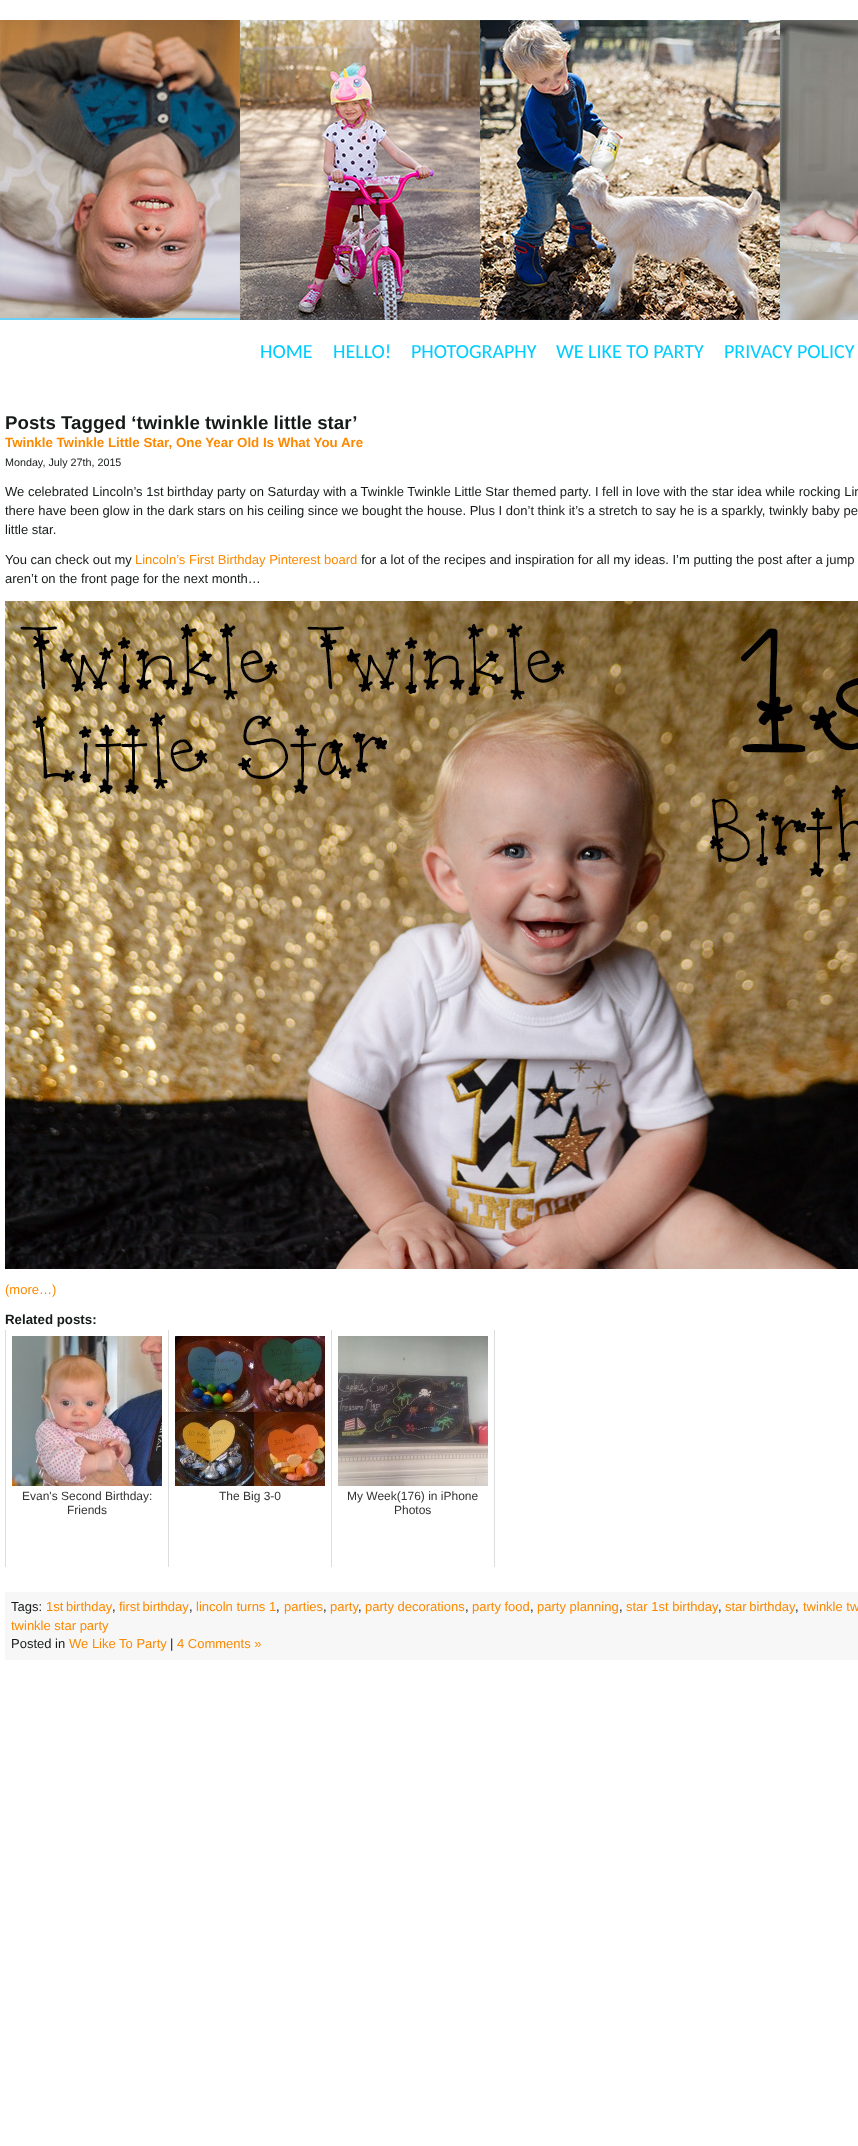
<svg xmlns="http://www.w3.org/2000/svg" width="858" height="2146">
	<rect width="100%" height="100%" fill="#FFFFFF" />
	<image x="0" y="20" width="858" height="300" href="assets/img1.png" />
	<g font-family="Carlito" font-size="20" fill="#00CCFF">
		<text x="260" y="358">HOME</text>
		<text x="333" y="358">HELLO!</text>
		<text x="411" y="358">PHOTOGRAPHY</text>
		<text x="556" y="358">WE LIKE TO PARTY</text>
		<text x="724" y="358">PRIVACY POLICY</text>
	</g>
	<text x="5" y="429" font-family="Liberation Sans" font-size="18.7" font-weight="700" fill="#171A1A">Posts Tagged ‘twinkle twinkle little star’</text>
	<text x="5" y="447" font-family="Liberation Sans" font-size="13.3" font-weight="700" fill="#FB8901">Twinkle Twinkle Little Star, One Year Old Is What You Are</text>
	<text x="5" y="466" font-family="Liberation Sans" font-size="10.75" fill="#171A1A">Monday, July 27th, 2015</text>
	<g font-family="Liberation Sans" font-size="13" fill="#171A1A">
		<text x="5" y="496">We celebrated Lincoln’s 1st birthday party on Saturday with a Twinkle Twinkle Little Star themed party. I fell in love with the star idea while rocking Lin</text>
		<text x="5" y="515">there have been glow in the dark stars on his ceiling since we bought the house. Plus I don’t think it’s a stretch to say he is a sparkly, twinkly baby pe</text>
		<text x="5" y="534">little star.</text>
		<text x="5" y="564">You can check out my</text>
	</g>
	<text x="135" y="564" font-family="Liberation Sans" font-size="13" fill="#FB8901">Lincoln’s First Birthday Pinterest board</text>
	<g font-family="Liberation Sans" font-size="13" fill="#171A1A">
		<text x="361" y="564">for a lot of the recipes and inspiration for all my ideas. I’m putting the post after a jump</text>
		<text x="5" y="583">aren’t on the front page for the next month…</text>
	</g>
	<image x="5" y="601" width="853" height="668" href="assets/img2.png" />
	<text x="5" y="1294" font-family="Liberation Sans" font-size="13" fill="#FB8901">(more…)</text>
	<text x="5" y="1324" font-family="Liberation Sans" font-size="13.3" font-weight="700" fill="#171A1A">Related posts:</text>
	<rect x="5" y="1330" width="1" height="237" fill="#DDDDDD" />
	<image x="12" y="1336" width="150" height="150" href="assets/img3.png" />
	<g font-family="Liberation Sans" font-size="12" fill="#333333">
		<text x="22" y="1500">Evan's Second Birthday:</text>
		<text x="67" y="1514">Friends</text>
	</g>
	<rect x="168" y="1330" width="1" height="237" fill="#DDDDDD" />
	<image x="175" y="1336" width="150" height="150" href="assets/img4.png" />
	<text x="219" y="1500" font-family="Liberation Sans" font-size="12" fill="#333333">The Big 3-0</text>
	<rect x="494" y="1330" width="1" height="237" fill="#DDDDDD" />
	<rect x="331" y="1330" width="1" height="237" fill="#DDDDDD" />
	<image x="338" y="1336" width="150" height="150" href="assets/img5.png" />
	<g font-family="Liberation Sans" font-size="12" fill="#333333">
		<text x="347" y="1500">My Week(176) in iPhone</text>
		<text x="394" y="1514">Photos</text>
	</g>
	<rect x="5" y="1592" width="853" height="68" fill="#F7F7F7" />
	<text x="11" y="1611" font-family="Liberation Sans" font-size="13" fill="#171A1A">Tags:</text>
	<text x="46" y="1611" word-spacing="-1" font-family="Liberation Sans" font-size="13" fill="#FB8901">1st birthday</text>
	<text x="112" y="1611" font-family="Liberation Sans" font-size="13" fill="#171A1A">,</text>
	<text x="119" y="1611" word-spacing="-1" font-family="Liberation Sans" font-size="13" fill="#FB8901">first birthday</text>
	<text x="189" y="1611" font-family="Liberation Sans" font-size="13" fill="#171A1A">,</text>
	<text x="196" y="1611" font-family="Liberation Sans" font-size="13" fill="#FB8901">lincoln turns 1</text>
	<text x="276" y="1611" font-family="Liberation Sans" font-size="13" fill="#171A1A">,</text>
	<text x="284" y="1611" font-family="Liberation Sans" font-size="13" fill="#FB8901">parties</text>
	<text x="323" y="1611" font-family="Liberation Sans" font-size="13" fill="#171A1A">,</text>
	<text x="330" y="1611" font-family="Liberation Sans" font-size="13" fill="#FB8901">party</text>
	<text x="358" y="1611" font-family="Liberation Sans" font-size="13" fill="#171A1A">,</text>
	<text x="365" y="1611" font-family="Liberation Sans" font-size="13" fill="#FB8901">party decorations</text>
	<text x="465" y="1611" font-family="Liberation Sans" font-size="13" fill="#171A1A">,</text>
	<text x="472" y="1611" font-family="Liberation Sans" font-size="13" fill="#FB8901">party food</text>
	<text x="530" y="1611" font-family="Liberation Sans" font-size="13" fill="#171A1A">,</text>
	<text x="537" y="1611" font-family="Liberation Sans" font-size="13" fill="#FB8901">party planning</text>
	<text x="619" y="1611" font-family="Liberation Sans" font-size="13" fill="#171A1A">,</text>
	<text x="626" y="1611" font-family="Liberation Sans" font-size="13" fill="#FB8901">star 1st birthday</text>
	<text x="718" y="1611" font-family="Liberation Sans" font-size="13" fill="#171A1A">,</text>
	<text x="725" y="1611" word-spacing="-1" font-family="Liberation Sans" font-size="13" fill="#FB8901">star birthday</text>
	<text x="795" y="1611" font-family="Liberation Sans" font-size="13" fill="#171A1A">,</text>
	<g font-family="Liberation Sans" font-size="13" fill="#FB8901">
		<text x="803" y="1611">twinkle tw</text>
		<text x="11" y="1630">twinkle star party</text>
	</g>
	<text x="11" y="1648" font-family="Liberation Sans" font-size="13" fill="#171A1A">Posted in</text>
	<text x="69" y="1648" font-family="Liberation Sans" font-size="13" fill="#FB8901">We Like To Party</text>
	<text x="170" y="1648" font-family="Liberation Sans" font-size="13" fill="#171A1A">|</text>
	<text x="177" y="1648" font-family="Liberation Sans" font-size="13" fill="#FB8901">4 Comments »</text>
</svg>
